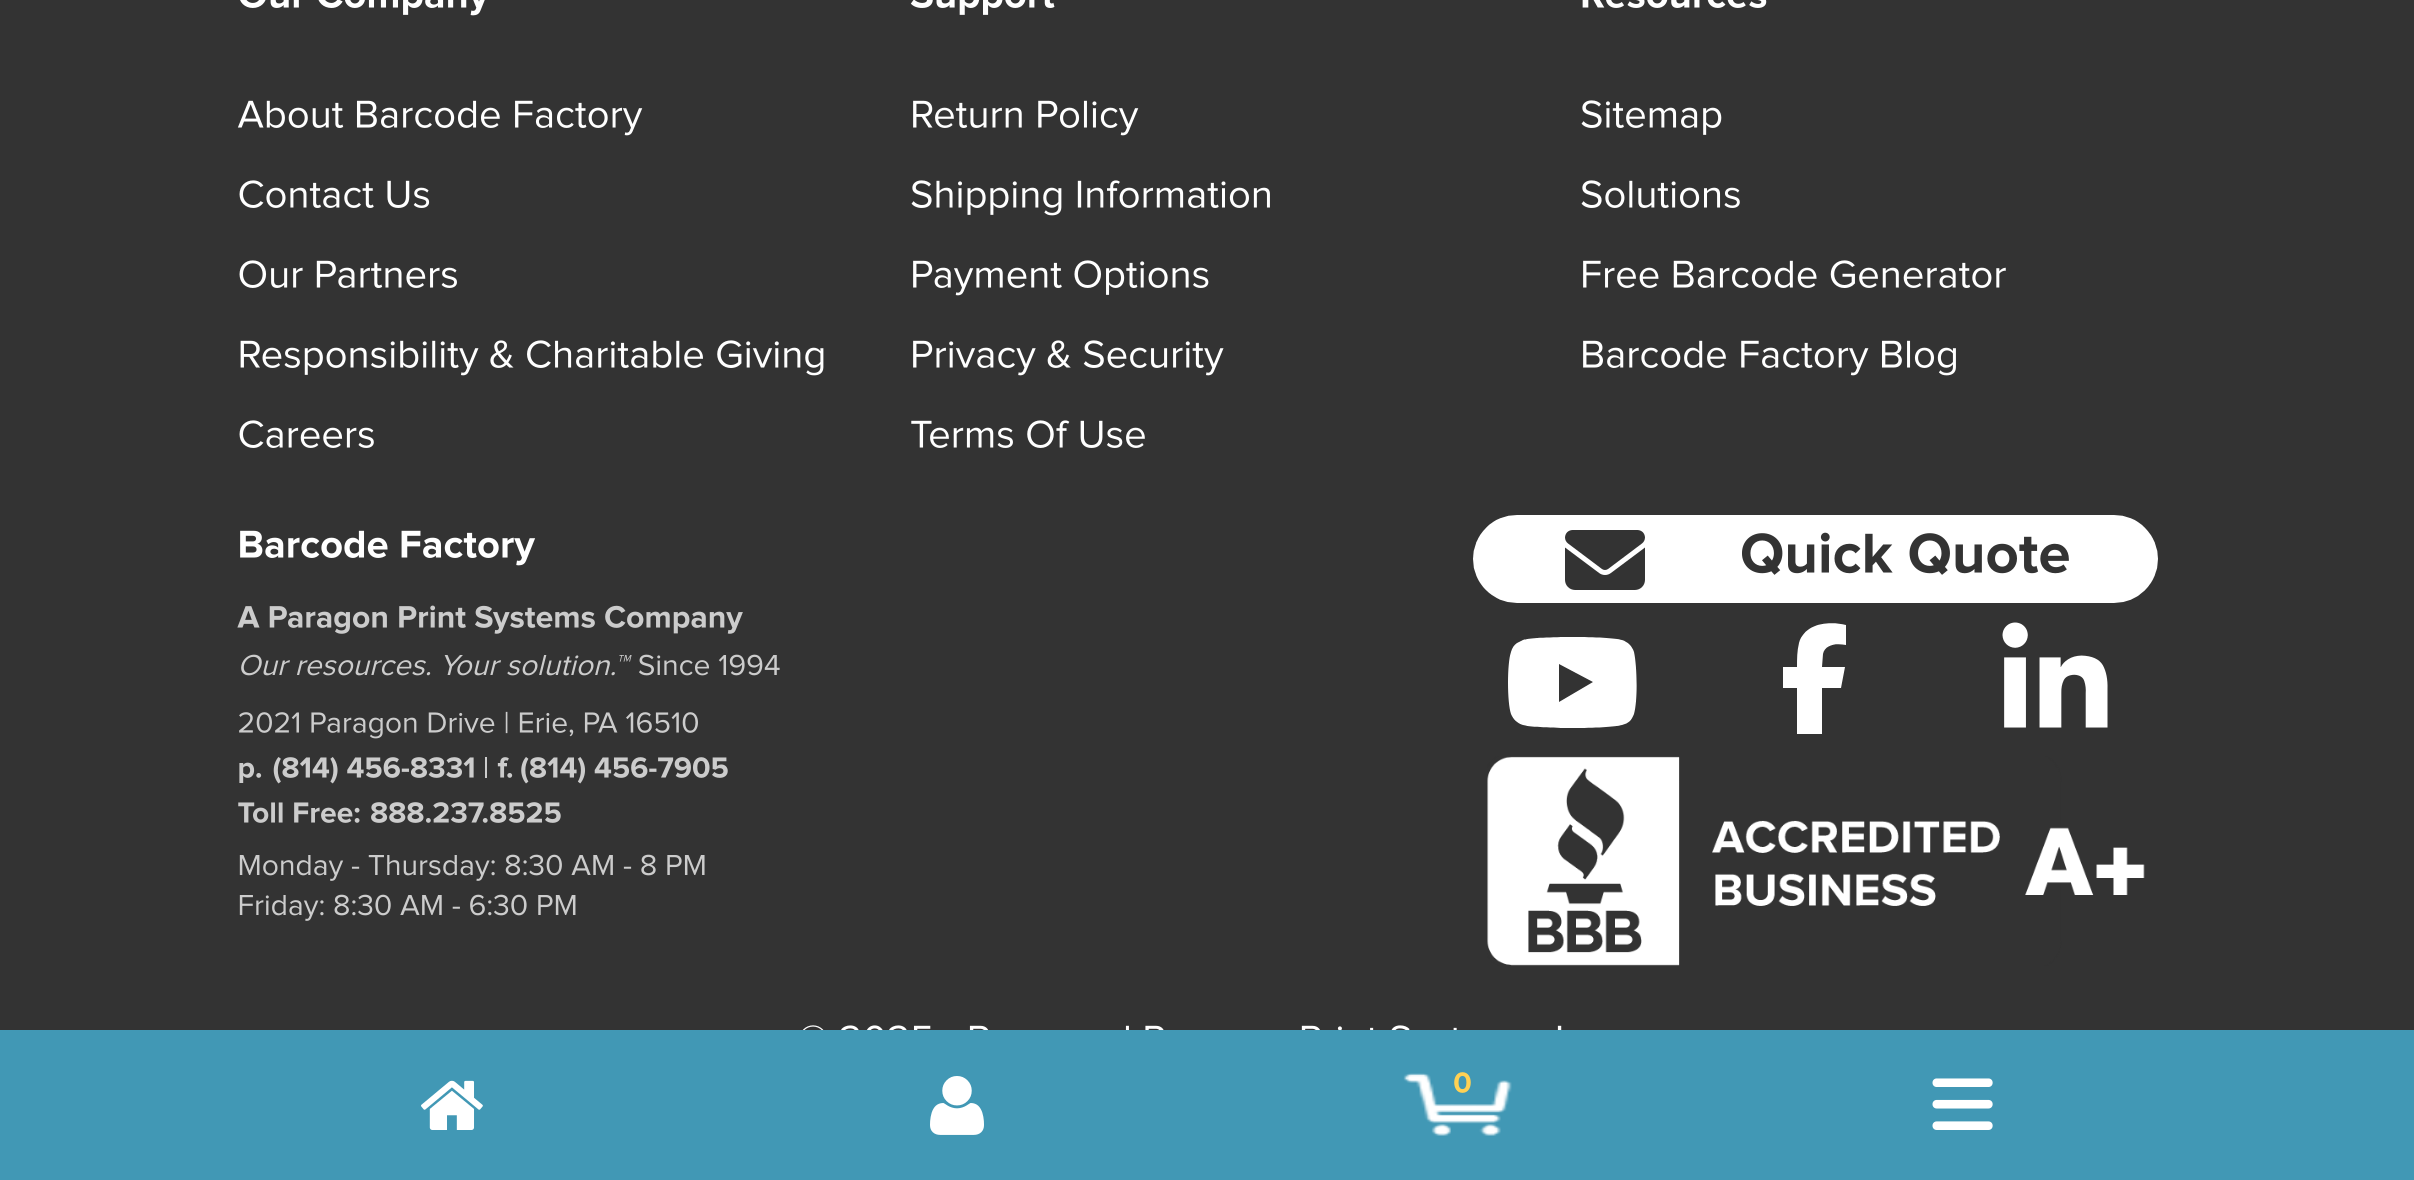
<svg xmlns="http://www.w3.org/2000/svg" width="2414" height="1180">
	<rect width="100%" height="100%" fill="#333333" />
	<image x="240" y="0" width="245" height="16" href="assets/img1.png" />
	<image x="237" y="100" width="406" height="36" href="assets/img2.png" />
	<image x="239" y="180" width="191" height="28" href="assets/img3.png" />
	<image x="239" y="260" width="218" height="28" href="assets/img4.png" />
	<image x="240" y="340" width="584" height="36" href="assets/img5.png" />
	<image x="239" y="420" width="135" height="28" href="assets/img6.png" />
	<image x="910" y="0" width="145" height="15" href="assets/img7.png" />
	<image x="913" y="100" width="226" height="36" href="assets/img8.png" />
	<image x="911" y="180" width="359" height="36" href="assets/img9.png" />
	<image x="913" y="260" width="296" height="36" href="assets/img10.png" />
	<image x="913" y="340" width="311" height="36" href="assets/img11.png" />
	<image x="911" y="420" width="234" height="28" href="assets/img12.png" />
	<image x="1582" y="0" width="185" height="8" href="assets/img13.png" />
	<image x="1581" y="100" width="141" height="35" href="assets/img14.png" />
	<image x="1581" y="180" width="159" height="28" href="assets/img15.png" />
	<image x="1583" y="260" width="423" height="28" href="assets/img16.png" />
	<image x="1583" y="340" width="373" height="36" href="assets/img17.png" />
	<image x="240" y="530" width="296" height="36" href="assets/img18.png" />
	<image x="237" y="605" width="506" height="29" href="assets/img19.png" />
	<image x="241" y="654" width="391" height="22" href="assets/img20.png" />
	<image x="639" y="654" width="141" height="22" href="assets/img21.png" />
	<image x="239" y="711" width="459" height="28" href="assets/img22.png" />
	<image x="239" y="762" width="23" height="21" href="assets/img23.png" />
	<image x="273" y="757" width="201" height="27" href="assets/img24.png" />
	<rect x="485" y="757" width="2" height="21" fill="#CCCCCC" />
	<image x="497" y="757" width="16" height="21" href="assets/img25.png" />
	<image x="521" y="757" width="207" height="27" href="assets/img26.png" />
	<image x="238" y="802" width="122" height="21" href="assets/img27.png" />
	<image x="371" y="802" width="190" height="21" href="assets/img28.png" />
	<image x="239" y="854" width="466" height="27" href="assets/img29.png" />
	<image x="239" y="894" width="337" height="27" href="assets/img30.png" />
	<rect x="1473" y="515" width="685" height="88" rx="44" fill="#FFFFFF" />
	<image x="1565" y="530" width="80" height="60" href="assets/img31.png" />
	<image x="1742" y="532" width="327" height="43" href="assets/img32.png" />
	<path d="M1634 652C1632 646 1628 642 1622 640C1610 636 1535 636 1523 640L1517 643C1514 645 1512 648 1511 652C1507 663 1507 702 1511 714C1513 719 1517 723 1523 725C1536 729 1609 729 1622 725C1625 724 1628 723 1630 721C1632 719 1633 716 1634 714C1638 700 1637 665 1634 652ZM1559 702V664V702V664L1593 682Z" fill="#FFFFFF" />
	<path d="M1797 688V734V688V734H1822V688H1841L1845 667H1822L1823 654C1825 644 1837 643 1846 645V625C1829 621 1805 623 1799 643C1797 651 1797 659 1797 667H1783V688Z" fill="#FFFFFF" />
	<image x="2002" y="622" width="106" height="106" href="assets/img33.png" />
	<image x="1487" y="756" width="658" height="210" href="assets/img34.png" />
	<image x="802" y="1025" width="760" height="5" href="assets/img35.png" />
	<rect x="0" y="1030" width="2414" height="150" fill="#4198B5" />
	<image x="421" y="1080" width="62" height="50" href="assets/img36.png" />
	<image x="930" y="1076" width="54" height="59" href="assets/img37.png" />
	<image x="1403" y="1073" width="109" height="63" href="assets/img39.png" />
	<image x="1454" y="1072" width="17" height="21" href="assets/img38.png" />
	<image x="1932" y="1078" width="61" height="52" href="assets/img40.png" />
</svg>
